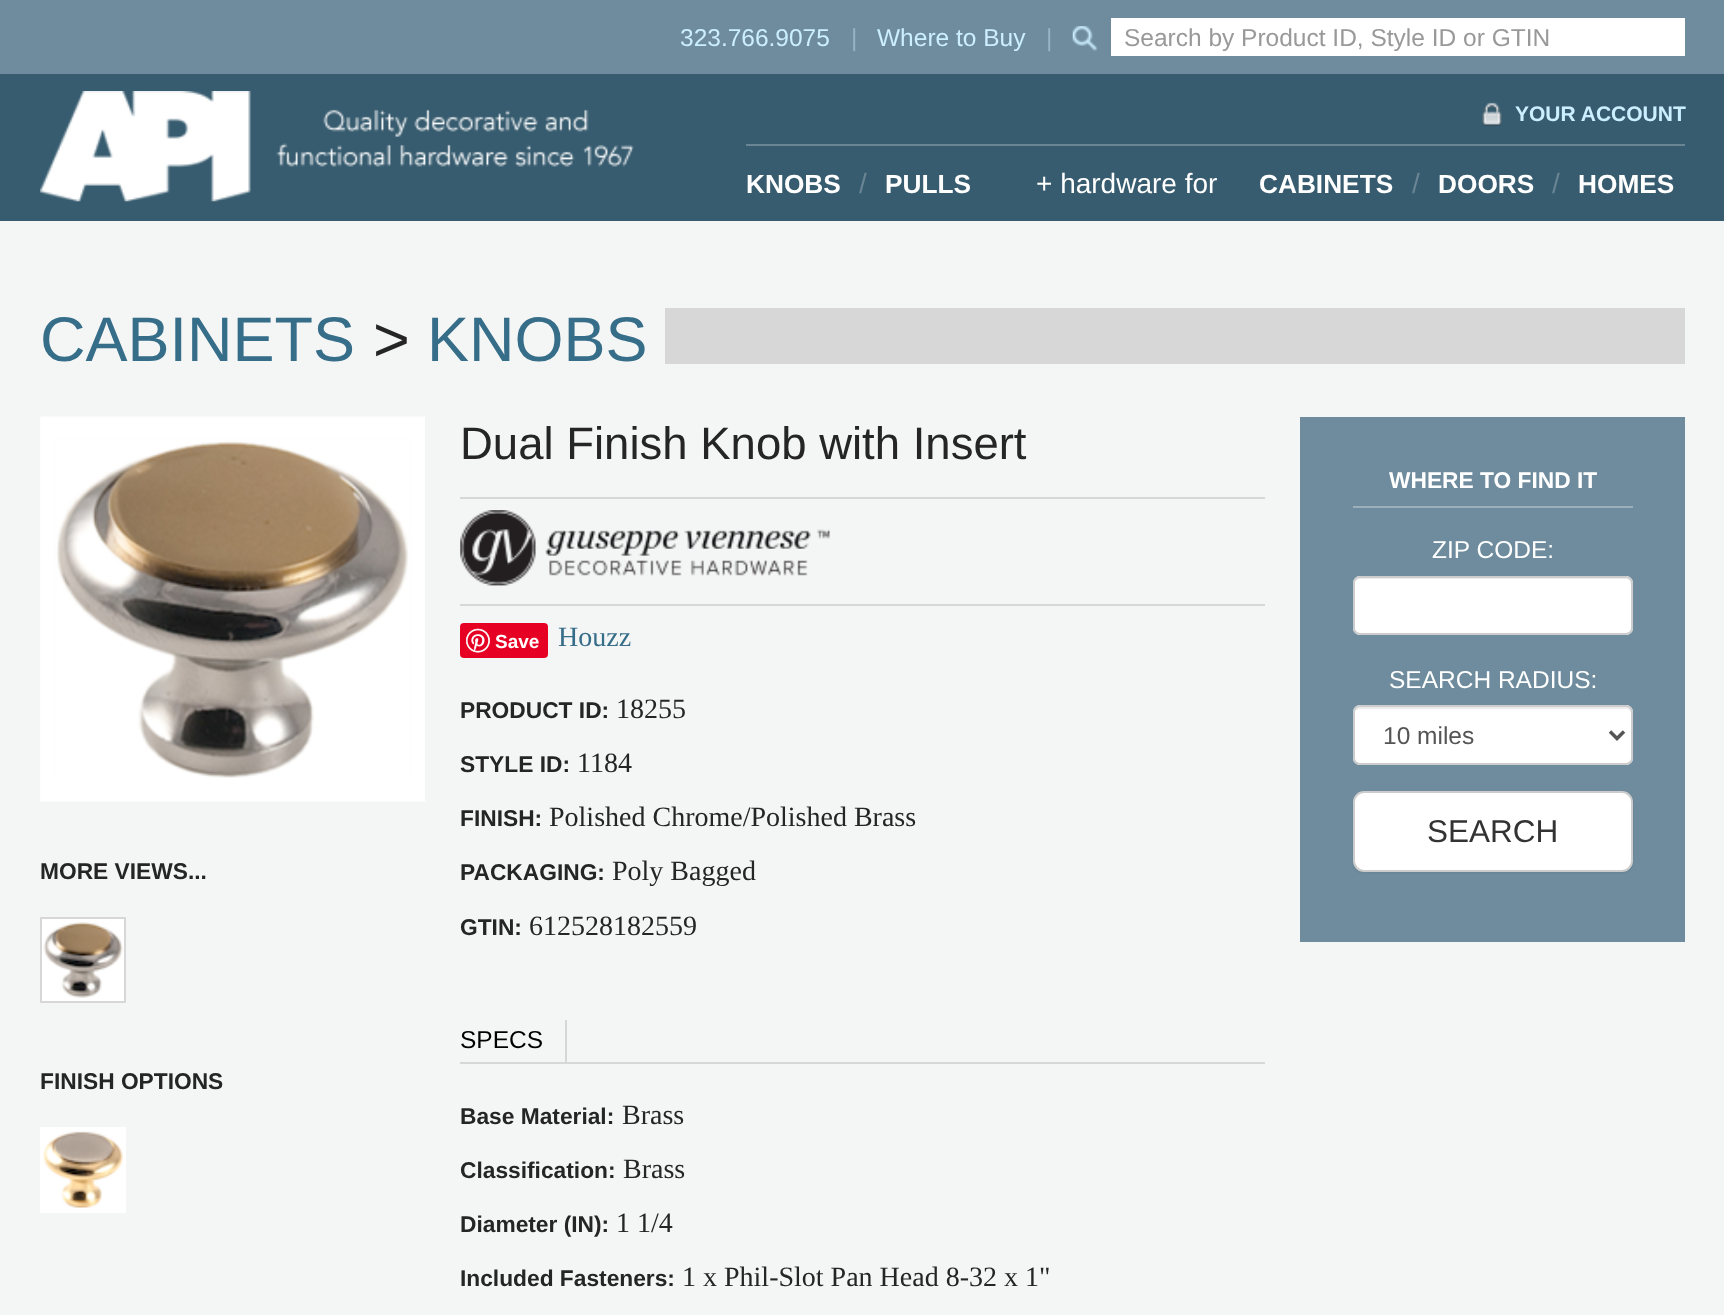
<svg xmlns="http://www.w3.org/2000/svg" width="1724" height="1315">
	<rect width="100%" height="100%" fill="#F4F5F5" />
	<rect x="0" y="0" width="1724" height="74" fill="#6E8C9D" />
	<text x="680" y="46" font-family="Liberation Sans" font-size="24.5" fill="#CCEFFF">323.766.9075</text>
	<text x="851" y="46" font-family="Liberation Sans" font-size="24.5" fill="#94B4C4">|</text>
	<text x="877" y="46" font-family="Liberation Sans" font-size="24.5" fill="#CCEFFF">Where to Buy</text>
	<text x="1046" y="46" font-family="Liberation Sans" font-size="24.5" fill="#94B4C4">|</text>
	<image x="1072" y="26" width="26" height="25" href="assets/img1.png" />
	<rect x="1111" y="18" width="574" height="38" fill="#FFFFFF" />
	<text x="1124" y="46" font-family="Liberation Sans" font-size="24.5" fill="#999999">Search by Product ID, Style ID or GTIN</text>
	<rect x="0" y="74" width="1724" height="147" fill="#375C6F" />
	<image x="40" y="91" width="594" height="111" href="assets/img2.png" />
	<image x="1482" y="102" width="20" height="24" href="assets/img3.png" />
	<text x="1515" y="121" font-family="Liberation Sans" font-size="21" font-weight="700" fill="#CCEFFF">YOUR ACCOUNT</text>
	<rect x="746" y="144" width="939" height="2" fill="#698593" />
	<text x="746" y="193" font-family="Liberation Sans" font-size="26.25" font-weight="700" fill="#FFFFFF">KNOBS</text>
	<text x="859" y="193" font-family="Liberation Sans" font-size="28" fill="#698593">/</text>
	<text x="885" y="193" font-family="Liberation Sans" font-size="26.25" font-weight="700" fill="#FFFFFF">PULLS</text>
	<text x="1036" y="193" font-family="Liberation Sans" font-size="28" fill="#FFFFFF">+ hardware for</text>
	<text x="1259" y="193" font-family="Liberation Sans" font-size="26.25" font-weight="700" fill="#FFFFFF">CABINETS</text>
	<text x="1412" y="193" font-family="Liberation Sans" font-size="28" fill="#698593">/</text>
	<text x="1438" y="193" font-family="Liberation Sans" font-size="26.25" font-weight="700" fill="#FFFFFF">DOORS</text>
	<text x="1552" y="193" font-family="Liberation Sans" font-size="28" fill="#698593">/</text>
	<text x="1578" y="193" font-family="Liberation Sans" font-size="26.25" font-weight="700" fill="#FFFFFF">HOMES</text>
	<rect x="665" y="308" width="1020" height="56" fill="#D7D7D7" />
	<text x="40" y="361" font-family="Liberation Sans" font-size="63" fill="#366D89">CABINETS</text>
	<text x="373" y="361" font-family="Liberation Sans" font-size="63" fill="#252525">&gt;</text>
	<text x="427" y="361" font-family="Liberation Sans" font-size="63" fill="#366D89">KNOBS</text>
	<text x="460" y="459" font-family="Liberation Sans" font-size="45.5" fill="#252525">Dual Finish Knob with Insert</text>
	<rect x="460" y="497" width="805" height="2" fill="#D7D7D7" />
	<rect x="460" y="604" width="805" height="2" fill="#D7D7D7" />
	<image x="460" y="510" width="370" height="76" href="assets/img4.png" />
	<rect x="460" y="623" width="88" height="35" rx="4" fill="#E60023" />
	<image x="466" y="628" width="24" height="25" href="assets/img5.png" />
	<text x="495" y="648" font-family="Liberation Sans" font-size="19" font-weight="700" fill="#FFFFFF">Save</text>
	<text x="558" y="646" font-family="Liberation Serif" font-size="28" fill="#366D89">Houzz</text>
	<text x="460" y="718" font-family="Liberation Sans" font-size="22.75" font-weight="700" fill="#252525">PRODUCT ID:</text>
	<text x="616" y="718" font-family="Liberation Serif" font-size="28" fill="#252525">18255</text>
	<text x="460" y="772" font-family="Liberation Sans" font-size="22.75" font-weight="700" fill="#252525">STYLE ID:</text>
	<text x="577" y="772" font-family="Liberation Serif" font-size="28" fill="#252525">1184</text>
	<text x="460" y="826" font-family="Liberation Sans" font-size="22.75" font-weight="700" fill="#252525">FINISH:</text>
	<text x="549" y="826" font-family="Liberation Serif" font-size="28" fill="#252525">Polished Chrome/Polished Brass</text>
	<text x="460" y="880" font-family="Liberation Sans" font-size="22.75" font-weight="700" fill="#252525">PACKAGING:</text>
	<text x="612" y="880" font-family="Liberation Serif" font-size="28" fill="#252525">Poly Bagged</text>
	<text x="460" y="935" font-family="Liberation Sans" font-size="22.75" font-weight="700" fill="#252525">GTIN:</text>
	<text x="529" y="935" font-family="Liberation Serif" font-size="28" fill="#252525">612528182559</text>
	<rect x="460" y="1062" width="805" height="2" fill="#D7D7D7" />
	<text x="460" y="1048" font-family="Liberation Sans" font-size="24.5" fill="#000000">SPECS</text>
	<rect x="565" y="1020" width="2" height="44" fill="#D7D7D7" />
	<text x="460" y="1124" font-family="Liberation Sans" font-size="22.75" font-weight="700" fill="#252525">Base Material:</text>
	<text x="622" y="1124" font-family="Liberation Serif" font-size="28" fill="#252525">Brass</text>
	<text x="460" y="1178" font-family="Liberation Sans" font-size="22.75" font-weight="700" fill="#252525">Classification:</text>
	<text x="623" y="1178" font-family="Liberation Serif" font-size="28" fill="#252525">Brass</text>
	<text x="460" y="1232" font-family="Liberation Sans" font-size="22.75" font-weight="700" fill="#252525">Diameter (IN):</text>
	<text x="616" y="1232" font-family="Liberation Serif" font-size="28" fill="#252525">1 1/4</text>
	<text x="460" y="1286" font-family="Liberation Sans" font-size="22.75" font-weight="700" fill="#252525">Included Fasteners:</text>
	<text x="682" y="1286" font-family="Liberation Serif" font-size="28" fill="#252525">1 x Phil-Slot Pan Head 8-32 x 1"</text>
	<rect x="1300" y="417" width="385" height="525" fill="#6E8C9D" />
	<rect x="1353" y="506" width="280" height="2" fill="#9AAFBB" />
	<text x="1389" y="488" font-family="Liberation Sans" font-size="22.75" font-weight="700" fill="#FFFFFF">WHERE TO FIND IT</text>
	<text x="1432" y="558" font-family="Liberation Sans" font-size="24.5" fill="#FFFFFF">ZIP CODE:</text>
	<rect x="1353" y="576" width="280" height="59" rx="7" fill="#FFFFFF" />
	<path d="M1360 579H1626C1629 579 1631 582 1631 584V583C1631 580 1629 578 1626 578H1360C1358 578 1356 579 1355 581C1356 580 1358 579 1360 579Z" fill="#ECECEC" />
	<rect x="1354" y="577" width="278" height="57" rx="6" fill="none" stroke="#CCCCCC" stroke-width="2" />
	<text x="1389" y="688" font-family="Liberation Sans" font-size="24.5" fill="#FFFFFF">SEARCH RADIUS:</text>
	<rect x="1353" y="705" width="280" height="60" rx="7" fill="#FFFFFF" />
	<path d="M1360 709H1626C1629 709 1631 711 1631 714V712C1631 709 1629 707 1626 707H1360C1358 707 1355 709 1355 711C1356 710 1358 709 1360 709Z" fill="#ECECEC" />
	<rect x="1354" y="706" width="278" height="58" rx="6" fill="none" stroke="#CCCCCC" stroke-width="2" />
	<path d="M1610 731.5L1617 738.5L1624 731.5" fill="none" stroke="#555555" stroke-width="3.5" />
	<text x="1383" y="744" font-family="Liberation Sans" font-size="24.5" fill="#555555">10 miles</text>
	<rect x="1353" y="793" width="280" height="80" rx="11" fill="#000000" fill-opacity="0.07" filter="blur(1px)" />
	<rect x="1354" y="792" width="278" height="79" rx="10" fill="#FFFFFF" stroke="#CCCCCC" stroke-width="2" />
	<text x="1427" y="842" font-family="Liberation Sans" font-size="31.5" fill="#333333">SEARCH</text>
	<image x="40" y="416" width="385" height="386" href="assets/img6.png" />
	<text x="40" y="879" font-family="Liberation Sans" font-size="22.75" font-weight="700" fill="#252525">MORE VIEWS...</text>
	<rect x="42" y="919" width="82" height="82" fill="#FFFFFF" />
	<image x="43" y="922" width="80" height="76" href="assets/img7.png" />
	<rect x="41" y="918" width="84" height="84" fill="none" stroke="#D7D7D7" stroke-width="2" />
	<text x="40" y="1089" font-family="Liberation Sans" font-size="22.75" font-weight="700" fill="#252525">FINISH OPTIONS</text>
	<rect x="40" y="1127" width="86" height="86" fill="#FFFFFF" />
	<image x="43" y="1131" width="80" height="77" href="assets/img8.png" />
</svg>
